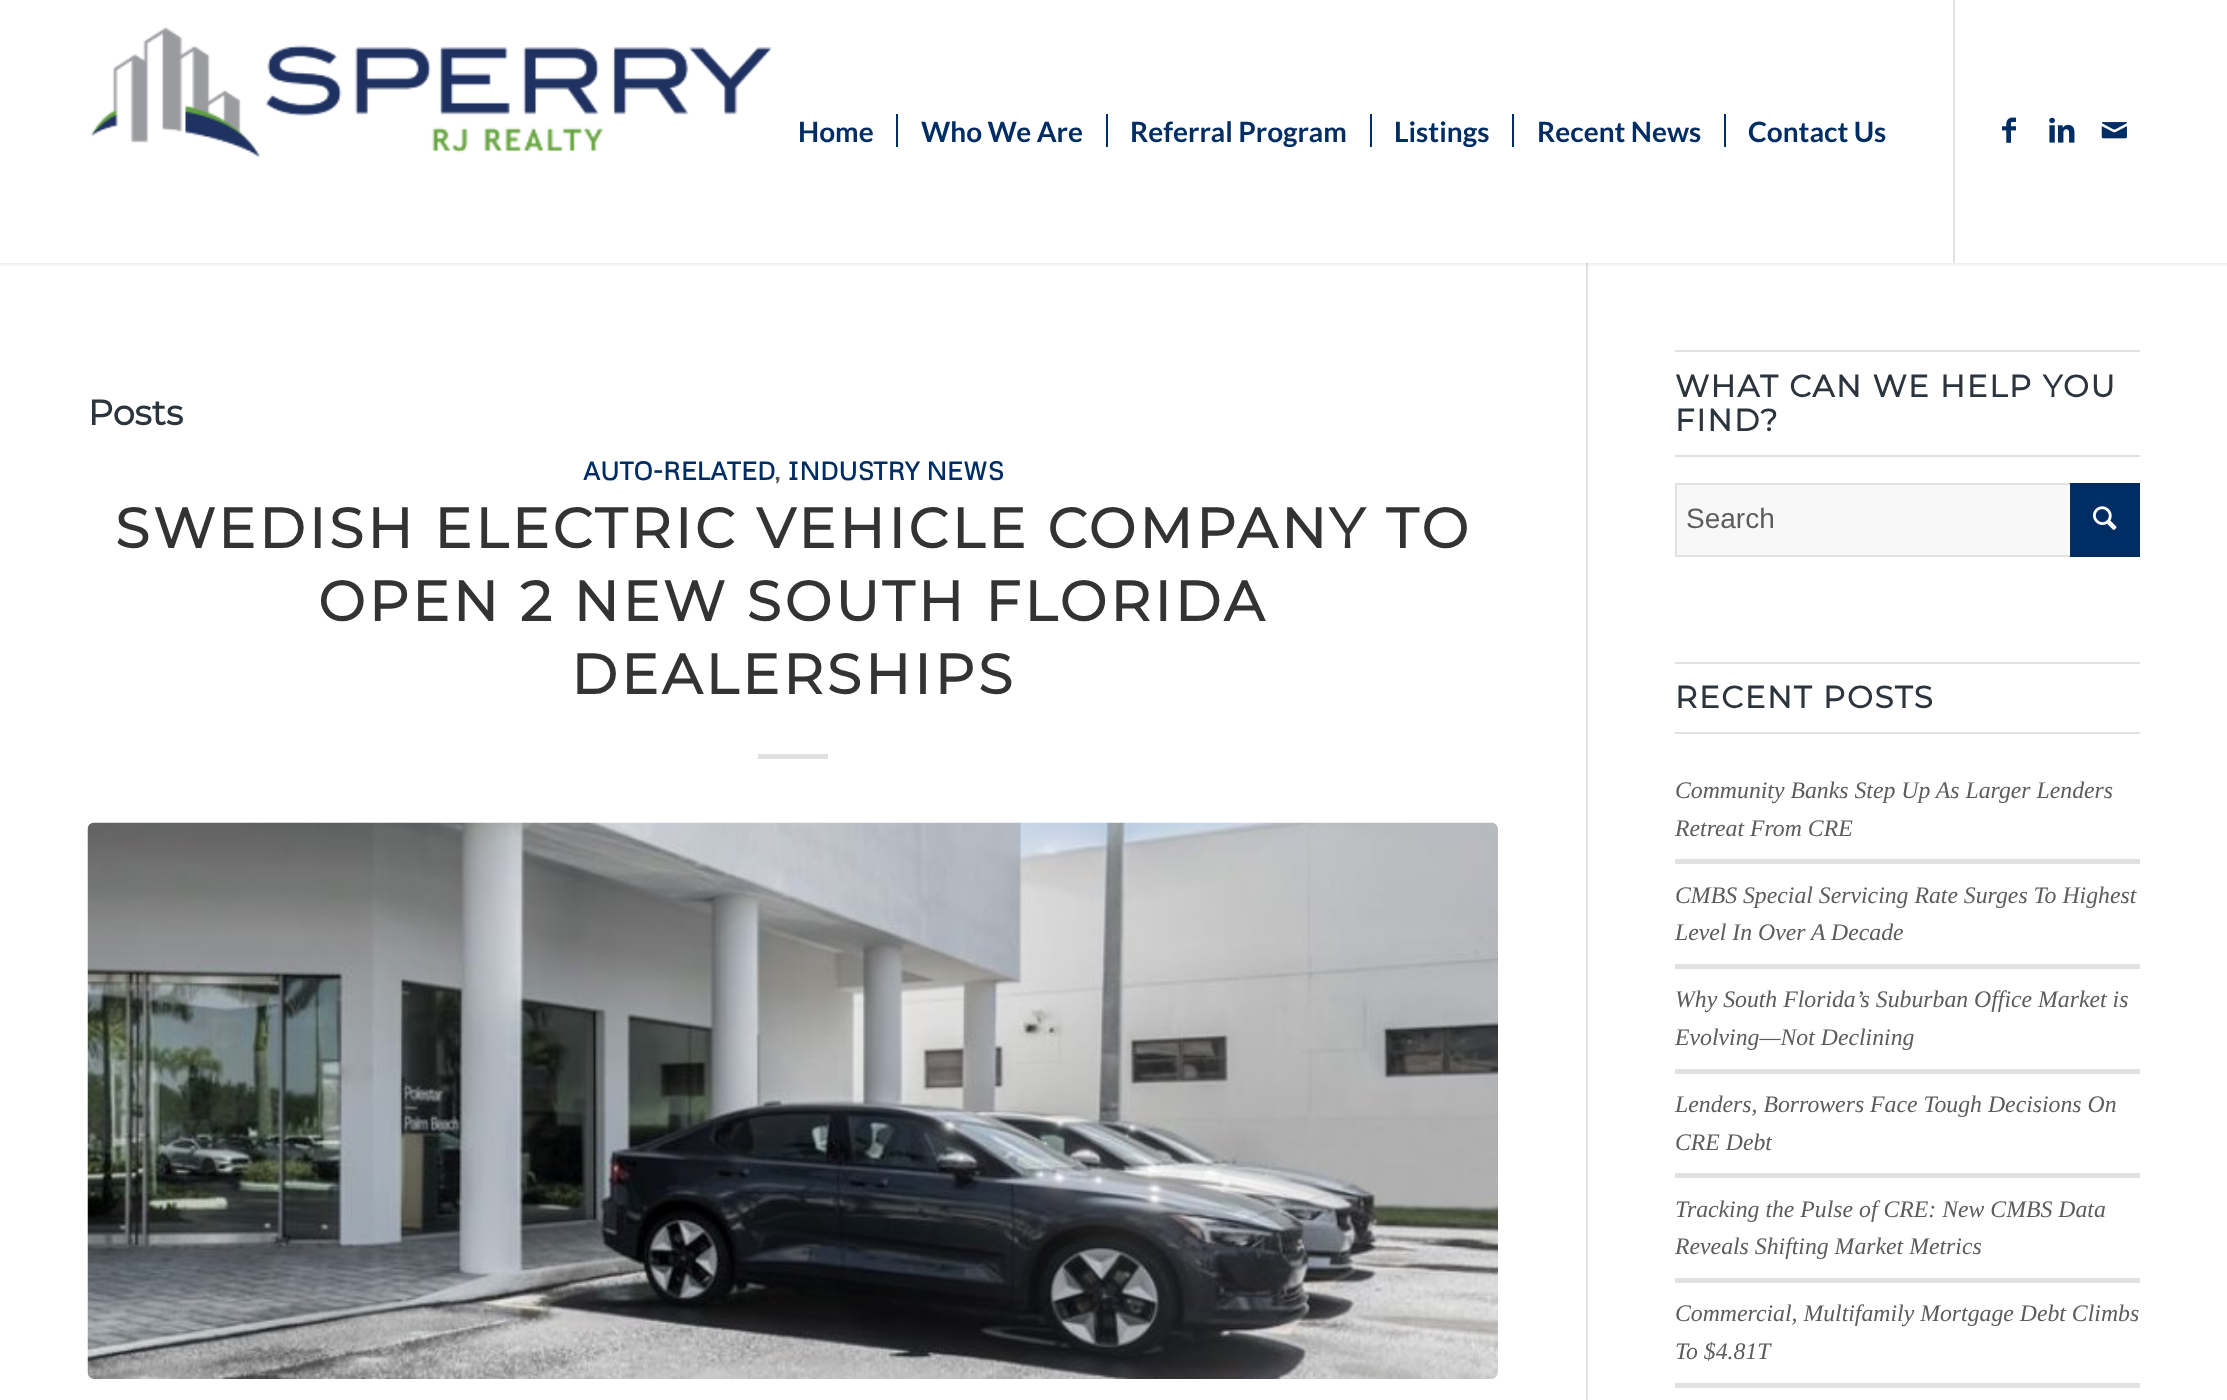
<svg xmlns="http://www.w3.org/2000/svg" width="2227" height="1400">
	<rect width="100%" height="100%" fill="#FFFFFF" />
	<rect x="1586" y="263" width="2" height="1137" fill="#E1E1E1" />
	<rect x="-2" y="-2" width="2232" height="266" fill="#000000" fill-opacity="0.1" filter="blur(2px)" />
	<rect x="0" y="0" width="2227" height="263" fill="#FFFFFF" />
	<image x="90" y="27" width="685" height="131" href="assets/img1.png" />
	<rect x="1953" y="0" width="2" height="263" fill="#E1E1E1" />
	<g font-family="Lato" font-size="28" font-weight="700" fill="#002D64">
		<text x="798" y="142">Home</text>
		<text x="921" y="142">Who We Are</text>
	</g>
	<rect x="896" y="114" width="2" height="33" fill="#002D64" />
	<text x="1130" y="142" font-family="Lato" font-size="28" font-weight="700" fill="#002D64">Referral Program</text>
	<rect x="1106" y="114" width="2" height="33" fill="#002D64" />
	<text x="1394" y="142" font-family="Lato" font-size="28" font-weight="700" fill="#002D64">Listings</text>
	<rect x="1370" y="114" width="2" height="33" fill="#002D64" />
	<text x="1537" y="142" font-family="Lato" font-size="28" font-weight="700" fill="#002D64">Recent News</text>
	<rect x="1512" y="114" width="2" height="33" fill="#002D64" />
	<text x="1748" y="142" font-family="Lato" font-size="28" font-weight="700" fill="#002D64">Contact Us</text>
	<rect x="1724" y="114" width="2" height="33" fill="#002D64" />
	<image x="2002" y="117" width="14" height="26" href="assets/img2.png" />
	<image x="2049" y="117" width="26" height="26" href="assets/img3.png" />
	<image x="2101" y="122" width="26" height="17" href="assets/img4.png" />
	<text x="88" y="425" font-family="Montserrat" font-size="35" font-weight="700" fill="#2C353D">Posts</text>
	<text x="583" y="480" font-family="Metrophobic" font-size="25.25" font-weight="700" fill="#002D64">AUTO-RELATED</text>
	<text x="774" y="480" font-family="Metrophobic" font-size="25.25" font-weight="700" fill="#5C5C5C">,</text>
	<text x="787" y="480" font-family="Metrophobic" font-size="25.25" font-weight="700" fill="#002D64">INDUSTRY NEWS</text>
	<g font-family="Montserrat" font-size="56" font-weight="700" letter-spacing="3.5" fill="#333333">
		<text x="115" y="548">SWEDISH ELECTRIC VEHICLE COMPANY TO</text>
		<text x="318" y="621">OPEN 2 NEW SOUTH FLORIDA</text>
		<text x="571" y="694">DEALERSHIPS</text>
	</g>
	<rect x="758" y="754" width="70" height="5" fill="#E1E1E1" />
	<image x="87" y="822" width="1411" height="557" href="assets/img5.png" />
	<rect x="1675" y="350" width="465" height="2" fill="#E1E1E1" />
	<rect x="1675" y="455" width="465" height="2" fill="#E1E1E1" />
	<g font-family="Montserrat" font-size="30.75" font-weight="700" letter-spacing="1.75" fill="#2C353D">
		<text x="1675" y="397">WHAT CAN WE HELP YOU</text>
		<text x="1675" y="431">FIND?</text>
	</g>
	<rect x="1677" y="485" width="393" height="70" fill="#F8F8F8" />
	<rect x="1676" y="484" width="463" height="72" fill="none" stroke="#E1E1E1" stroke-width="2" />
	<text x="1686" y="528" font-family="Liberation Sans" font-size="28" fill="#5C5C5C">Search</text>
	<rect x="2070" y="483" width="70" height="74" fill="#002D64" />
	<image x="2093" y="506" width="24" height="24" href="assets/img6.png" />
	<rect x="1675" y="662" width="465" height="2" fill="#E1E1E1" />
	<rect x="1675" y="732" width="465" height="2" fill="#E1E1E1" />
	<text x="1675" y="708" font-family="Montserrat" font-size="30.75" font-weight="700" letter-spacing="1.75" fill="#2C353D">RECENT POSTS</text>
	<g font-family="Liberation Serif" font-size="23.75" font-style="italic" fill="#5C5C5C">
		<text x="1675" y="798">Community Banks Step Up As Larger Lenders</text>
		<text x="1675" y="836">Retreat From CRE</text>
	</g>
	<rect x="1675" y="859" width="465" height="5" fill="#E1E1E1" />
	<g font-family="Liberation Serif" font-size="23.75" font-style="italic" fill="#5C5C5C">
		<text x="1675" y="903">CMBS Special Servicing Rate Surges To Highest</text>
		<text x="1675" y="940">Level In Over A Decade</text>
	</g>
	<rect x="1675" y="964" width="465" height="5" fill="#E1E1E1" />
	<g font-family="Liberation Serif" font-size="23.75" font-style="italic" fill="#5C5C5C">
		<text x="1675" y="1007">Why South Florida’s Suburban Office Market is</text>
		<text x="1675" y="1045">Evolving—Not Declining</text>
	</g>
	<rect x="1675" y="1069" width="465" height="5" fill="#E1E1E1" />
	<g font-family="Liberation Serif" font-size="23.75" font-style="italic" fill="#5C5C5C">
		<text x="1675" y="1112">Lenders, Borrowers Face Tough Decisions On</text>
		<text x="1675" y="1150">CRE Debt</text>
	</g>
	<rect x="1675" y="1173" width="465" height="5" fill="#E1E1E1" />
	<g font-family="Liberation Serif" font-size="23.75" font-style="italic" fill="#5C5C5C">
		<text x="1675" y="1217">Tracking the Pulse of CRE: New CMBS Data</text>
		<text x="1675" y="1254">Reveals Shifting Market Metrics</text>
	</g>
	<rect x="1675" y="1278" width="465" height="5" fill="#E1E1E1" />
	<g font-family="Liberation Serif" font-size="23.75" font-style="italic" fill="#5C5C5C">
		<text x="1675" y="1321">Commercial, Multifamily Mortgage Debt Climbs</text>
		<text x="1675" y="1359">To $4.81T</text>
	</g>
	<rect x="1675" y="1383" width="465" height="5" fill="#E1E1E1" />
</svg>
